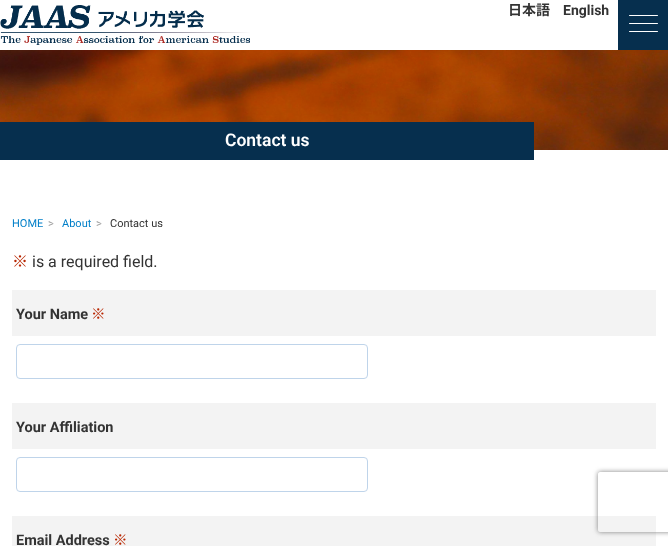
<svg xmlns="http://www.w3.org/2000/svg" width="668" height="546">
	<defs>
		<clipPath id="clip1"><path d="M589 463H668V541H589ZM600 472H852C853 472 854 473 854 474V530C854 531 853 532 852 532H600C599 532 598 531 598 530V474C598 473 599 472 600 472Z" clip-rule="evenodd" /></clipPath>
	</defs>
	<rect width="100%" height="100%" fill="#FFFFFF" />
	<image x="0" y="5" width="250" height="40" href="assets/img1.png" />
	<text x="508" y="15" font-family="Noto Sans JP" font-size="14" font-weight="700" fill="#333333">日本語</text>
	<text x="563" y="15" font-family="Roboto" font-size="14" font-weight="700" fill="#333333">English</text>
	<rect x="618" y="0" width="50" height="50" fill="#062F4E" />
	<rect x="629" y="15" width="29" height="1" rx="0.5" fill="#FFFFFF" />
	<rect x="629" y="23" width="29" height="1" rx="0.5" fill="#FFFFFF" />
	<rect x="629" y="31" width="29" height="1" rx="0.5" fill="#FFFFFF" />
	<image x="0" y="50" width="668" height="100" href="assets/img2.png" />
	<rect x="0" y="122" width="534" height="38" fill="#062F4E" />
	<text x="225" y="146" font-family="Roboto" font-size="17.5" font-weight="600" fill="#FFFFFF">Contact us</text>
	<text x="12" y="227" font-family="Roboto" font-size="11" fill="#007FC8">HOME</text>
	<text x="48" y="227" font-family="Roboto" font-size="11" fill="#999999">&gt;</text>
	<text x="62" y="227" font-family="Roboto" font-size="11" fill="#007FC8">About</text>
	<text x="96" y="227" font-family="Roboto" font-size="11" fill="#999999">&gt;</text>
	<text x="110" y="227" font-family="Roboto" font-size="11" fill="#333333">Contact us</text>
	<text x="12" y="267" font-family="Noto Sans JP" font-size="16" fill="#B82601">※</text>
	<text x="32" y="267" font-family="Roboto" font-size="16" fill="#333333">is a required field.</text>
	<rect x="12" y="290" width="644" height="46" fill="#F3F3F3" />
	<text x="16" y="319" font-family="Roboto" font-size="14.5" font-weight="700" fill="#333333">Your Name</text>
	<text x="91" y="319" font-family="Noto Sans JP" font-size="14.5" font-weight="700" fill="#B82601">※</text>
	<rect x="16.5" y="344.5" width="351" height="34" rx="3.5" fill="none" stroke="#BFD4EA" />
	<rect x="12" y="403" width="644" height="46" fill="#F3F3F3" />
	<text x="16" y="432" font-family="Roboto" font-size="14.5" font-weight="700" fill="#333333">Your Affiliation</text>
	<rect x="16.5" y="457.5" width="351" height="34" rx="3.5" fill="none" stroke="#BFD4EA" />
	<rect x="12" y="516" width="644" height="30" fill="#F3F3F3" />
	<text x="16" y="545" font-family="Roboto" font-size="14.5" font-weight="700" fill="#333333">Email Address</text>
	<text x="113" y="545" font-family="Noto Sans JP" font-size="14.5" font-weight="700" fill="#B82601">※</text>
	<g clip-path="url(#clip1)">
		<rect x="598" y="472" width="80" height="60" rx="2" fill="#808080" filter="blur(2.5px)" />
	</g>
</svg>
